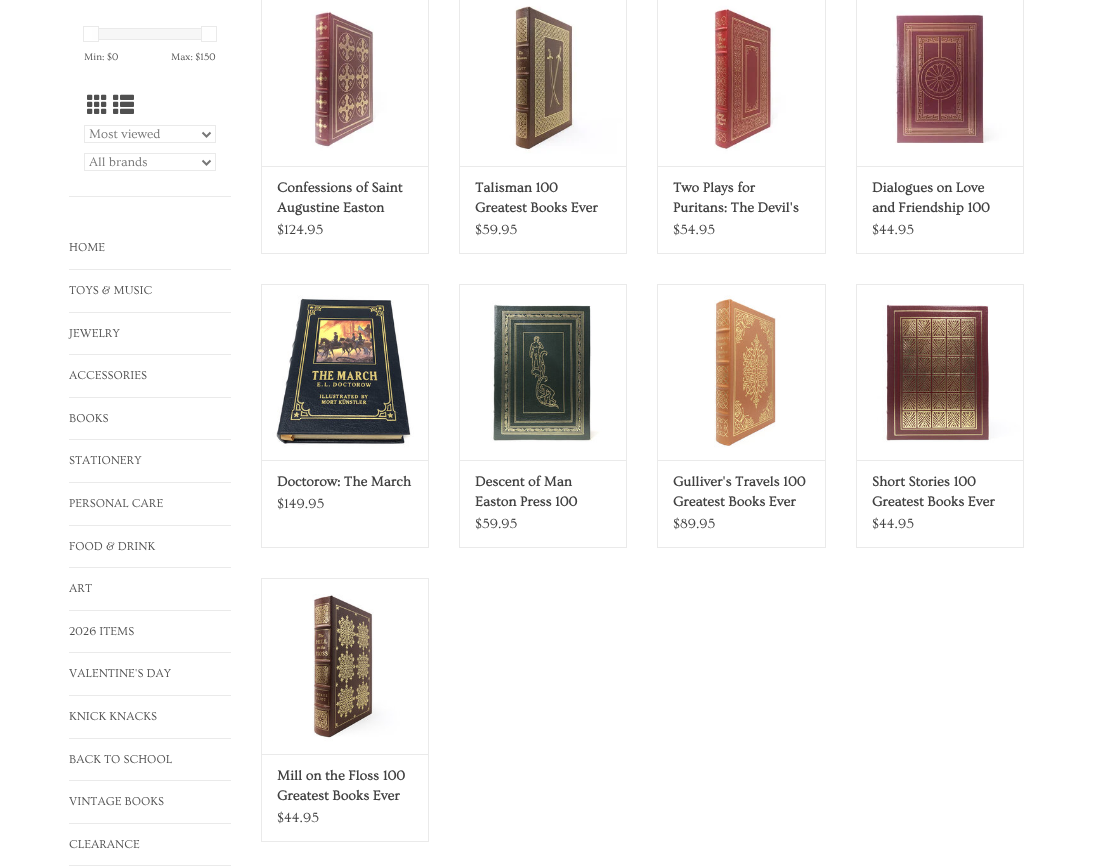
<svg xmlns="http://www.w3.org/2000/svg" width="1108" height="867">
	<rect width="100%" height="100%" fill="#FFFFFF" />
	<rect x="69" y="196" width="162" height="1" fill="#EAEAEA" />
	<rect x="99" y="29" width="102" height="10" fill="#F7F7F7" />
	<rect x="92.5" y="28.5" width="117" height="11" fill="none" stroke="#EAEAEA" />
	<rect x="92" y="28" width="6" height="12" fill="#FEFEFE" />
	<rect x="83.5" y="26.5" width="15" height="15" fill="none" stroke="#EAEAEA" />
	<rect x="202" y="28" width="8" height="12" fill="#FEFEFE" />
	<rect x="201.5" y="26.5" width="15" height="15" fill="none" stroke="#EAEAEA" />
	<g font-family="Ovo" font-size="10" fill="#505050">
		<text x="84" y="60">Min: $0</text>
		<text x="171" y="60">Max: $150</text>
	</g>
	<image x="87" y="94" width="20" height="20" href="assets/img1.png" />
	<image x="113" y="94" width="21" height="20" href="assets/img2.png" />
	<rect x="84.5" y="125.5" width="131" height="17" fill="none" stroke="#EAEAEA" />
	<path d="M202.5 132.5L206.5 136.5L210.5 132.5" fill="none" stroke="#777777" stroke-width="2" />
	<text x="89" y="138" font-family="Ovo" font-size="13" fill="#777777">Most viewed</text>
	<rect x="84.5" y="153.5" width="131" height="17" fill="none" stroke="#EAEAEA" />
	<path d="M202.5 160.5L206.5 164.5L210.5 160.5" fill="none" stroke="#777777" stroke-width="2" />
	<text x="89" y="166" font-family="Ovo" font-size="13" fill="#777777">All brands</text>
	<rect x="69" y="269" width="162" height="1" fill="#EAEAEA" />
	<text x="69" y="251" font-family="Ovo" font-size="12" fill="#505050">HOME</text>
	<rect x="69" y="312" width="162" height="1" fill="#EAEAEA" />
	<text x="69" y="294" font-family="Ovo" font-size="12" fill="#505050">TOYS &amp; MUSIC</text>
	<rect x="69" y="354" width="162" height="1" fill="#EAEAEA" />
	<text x="69" y="337" font-family="Ovo" font-size="12" fill="#505050">JEWELRY</text>
	<rect x="69" y="397" width="162" height="1" fill="#EAEAEA" />
	<text x="69" y="379" font-family="Ovo" font-size="12" fill="#505050">ACCESSORIES</text>
	<rect x="69" y="439" width="162" height="1" fill="#EAEAEA" />
	<text x="69" y="422" font-family="Ovo" font-size="12" fill="#505050">BOOKS</text>
	<rect x="69" y="482" width="162" height="1" fill="#EAEAEA" />
	<text x="69" y="464" font-family="Ovo" font-size="12" fill="#505050">STATIONERY</text>
	<rect x="69" y="525" width="162" height="1" fill="#EAEAEA" />
	<text x="69" y="507" font-family="Ovo" font-size="12" fill="#505050">PERSONAL CARE</text>
	<rect x="69" y="567" width="162" height="1" fill="#EAEAEA" />
	<text x="69" y="550" font-family="Ovo" font-size="12" fill="#505050">FOOD &amp; DRINK</text>
	<rect x="69" y="610" width="162" height="1" fill="#EAEAEA" />
	<text x="69" y="592" font-family="Ovo" font-size="12" fill="#505050">ART</text>
	<rect x="69" y="652" width="162" height="1" fill="#EAEAEA" />
	<text x="69" y="635" font-family="Ovo" font-size="12" fill="#505050">2026 ITEMS</text>
	<rect x="69" y="695" width="162" height="1" fill="#EAEAEA" />
	<text x="69" y="677" font-family="Ovo" font-size="12" fill="#505050">VALENTINE'S DAY</text>
	<rect x="69" y="738" width="162" height="1" fill="#EAEAEA" />
	<text x="69" y="720" font-family="Ovo" font-size="12" fill="#505050">KNICK KNACKS</text>
	<rect x="69" y="780" width="162" height="1" fill="#EAEAEA" />
	<text x="69" y="763" font-family="Ovo" font-size="12" fill="#505050">BACK TO SCHOOL</text>
	<rect x="69" y="823" width="162" height="1" fill="#EAEAEA" />
	<text x="69" y="805" font-family="Ovo" font-size="12" fill="#505050">VINTAGE BOOKS</text>
	<rect x="69" y="865" width="162" height="1" fill="#EAEAEA" />
	<text x="69" y="848" font-family="Ovo" font-size="12" fill="#505050">CLEARANCE</text>
	<rect x="428" y="0" width="1" height="166" fill="#EAEAEA" />
	<rect x="261" y="0" width="1" height="166" fill="#EAEAEA" />
	<image x="262" y="0" width="166" height="166" href="assets/img3.png" />
	<rect x="261.5" y="166.5" width="167" height="87" fill="none" stroke="#EAEAEA" />
	<g font-family="Ovo" font-size="14" font-weight="700" fill="#414141">
		<text x="277" y="192">Confessions of Saint</text>
		<text x="277" y="212">Augustine Easton</text>
	</g>
	<text x="277" y="234" font-family="Ovo" font-size="14" fill="#414141">$124.95</text>
	<rect x="626" y="0" width="1" height="166" fill="#EAEAEA" />
	<rect x="459" y="0" width="1" height="166" fill="#EAEAEA" />
	<image x="460" y="0" width="166" height="166" href="assets/img4.png" />
	<rect x="459.5" y="166.5" width="167" height="87" fill="none" stroke="#EAEAEA" />
	<g font-family="Ovo" font-size="14" font-weight="700" fill="#414141">
		<text x="475" y="192">Talisman 100</text>
		<text x="475" y="212">Greatest Books Ever</text>
	</g>
	<text x="475" y="234" font-family="Ovo" font-size="14" fill="#414141">$59.95</text>
	<rect x="825" y="0" width="1" height="166" fill="#EAEAEA" />
	<rect x="657" y="0" width="1" height="166" fill="#EAEAEA" />
	<image x="658" y="0" width="167" height="166" href="assets/img5.png" />
	<rect x="657.5" y="166.5" width="168" height="87" fill="none" stroke="#EAEAEA" />
	<g font-family="Ovo" font-size="14" font-weight="700" fill="#414141">
		<text x="673" y="192">Two Plays for</text>
		<text x="673" y="212">Puritans: The Devil's</text>
	</g>
	<text x="673" y="234" font-family="Ovo" font-size="14" fill="#414141">$54.95</text>
	<rect x="1023" y="0" width="1" height="166" fill="#EAEAEA" />
	<rect x="856" y="0" width="1" height="166" fill="#EAEAEA" />
	<image x="857" y="0" width="166" height="166" href="assets/img6.png" />
	<rect x="856.5" y="166.5" width="167" height="87" fill="none" stroke="#EAEAEA" />
	<g font-family="Ovo" font-size="14" font-weight="700" fill="#414141">
		<text x="872" y="192">Dialogues on Love</text>
		<text x="872" y="212">and Friendship 100</text>
	</g>
	<text x="872" y="234" font-family="Ovo" font-size="14" fill="#414141">$44.95</text>
	<rect x="261" y="284" width="168" height="1" fill="#EAEAEA" />
	<rect x="428" y="284" width="1" height="176" fill="#EAEAEA" />
	<rect x="261" y="284" width="1" height="176" fill="#EAEAEA" />
	<image x="262" y="285" width="166" height="175" href="assets/img7.png" />
	<rect x="261.5" y="460.5" width="167" height="87" fill="none" stroke="#EAEAEA" />
	<text x="277" y="486" font-family="Ovo" font-size="14" font-weight="700" fill="#414141">Doctorow: The March</text>
	<text x="277" y="508" font-family="Ovo" font-size="14" fill="#414141">$149.95</text>
	<rect x="459" y="284" width="168" height="1" fill="#EAEAEA" />
	<rect x="626" y="284" width="1" height="176" fill="#EAEAEA" />
	<rect x="459" y="284" width="1" height="176" fill="#EAEAEA" />
	<image x="460" y="285" width="166" height="175" href="assets/img8.png" />
	<rect x="459.5" y="460.5" width="167" height="87" fill="none" stroke="#EAEAEA" />
	<g font-family="Ovo" font-size="14" font-weight="700" fill="#414141">
		<text x="475" y="486">Descent of Man</text>
		<text x="475" y="506">Easton Press 100</text>
	</g>
	<text x="475" y="528" font-family="Ovo" font-size="14" fill="#414141">$59.95</text>
	<rect x="657" y="284" width="169" height="1" fill="#EAEAEA" />
	<rect x="825" y="284" width="1" height="176" fill="#EAEAEA" />
	<rect x="657" y="284" width="1" height="176" fill="#EAEAEA" />
	<image x="658" y="285" width="167" height="175" href="assets/img9.png" />
	<rect x="657.5" y="460.5" width="168" height="87" fill="none" stroke="#EAEAEA" />
	<g font-family="Ovo" font-size="14" font-weight="700" fill="#414141">
		<text x="673" y="486">Gulliver's Travels 100</text>
		<text x="673" y="506">Greatest Books Ever</text>
	</g>
	<text x="673" y="528" font-family="Ovo" font-size="14" fill="#414141">$89.95</text>
	<rect x="856" y="284" width="168" height="1" fill="#EAEAEA" />
	<rect x="1023" y="284" width="1" height="176" fill="#EAEAEA" />
	<rect x="856" y="284" width="1" height="176" fill="#EAEAEA" />
	<image x="857" y="285" width="166" height="175" href="assets/img10.png" />
	<rect x="856.5" y="460.5" width="167" height="87" fill="none" stroke="#EAEAEA" />
	<g font-family="Ovo" font-size="14" font-weight="700" fill="#414141">
		<text x="872" y="486">Short Stories 100</text>
		<text x="872" y="506">Greatest Books Ever</text>
	</g>
	<text x="872" y="528" font-family="Ovo" font-size="14" fill="#414141">$44.95</text>
	<rect x="261" y="578" width="168" height="1" fill="#EAEAEA" />
	<rect x="428" y="578" width="1" height="176" fill="#EAEAEA" />
	<rect x="261" y="578" width="1" height="176" fill="#EAEAEA" />
	<image x="262" y="579" width="166" height="175" href="assets/img11.png" />
	<rect x="261.5" y="754.5" width="167" height="87" fill="none" stroke="#EAEAEA" />
	<g font-family="Ovo" font-size="14" font-weight="700" fill="#414141">
		<text x="277" y="780">Mill on the Floss 100</text>
		<text x="277" y="800">Greatest Books Ever</text>
	</g>
	<text x="277" y="822" font-family="Ovo" font-size="14" fill="#414141">$44.95</text>
</svg>
